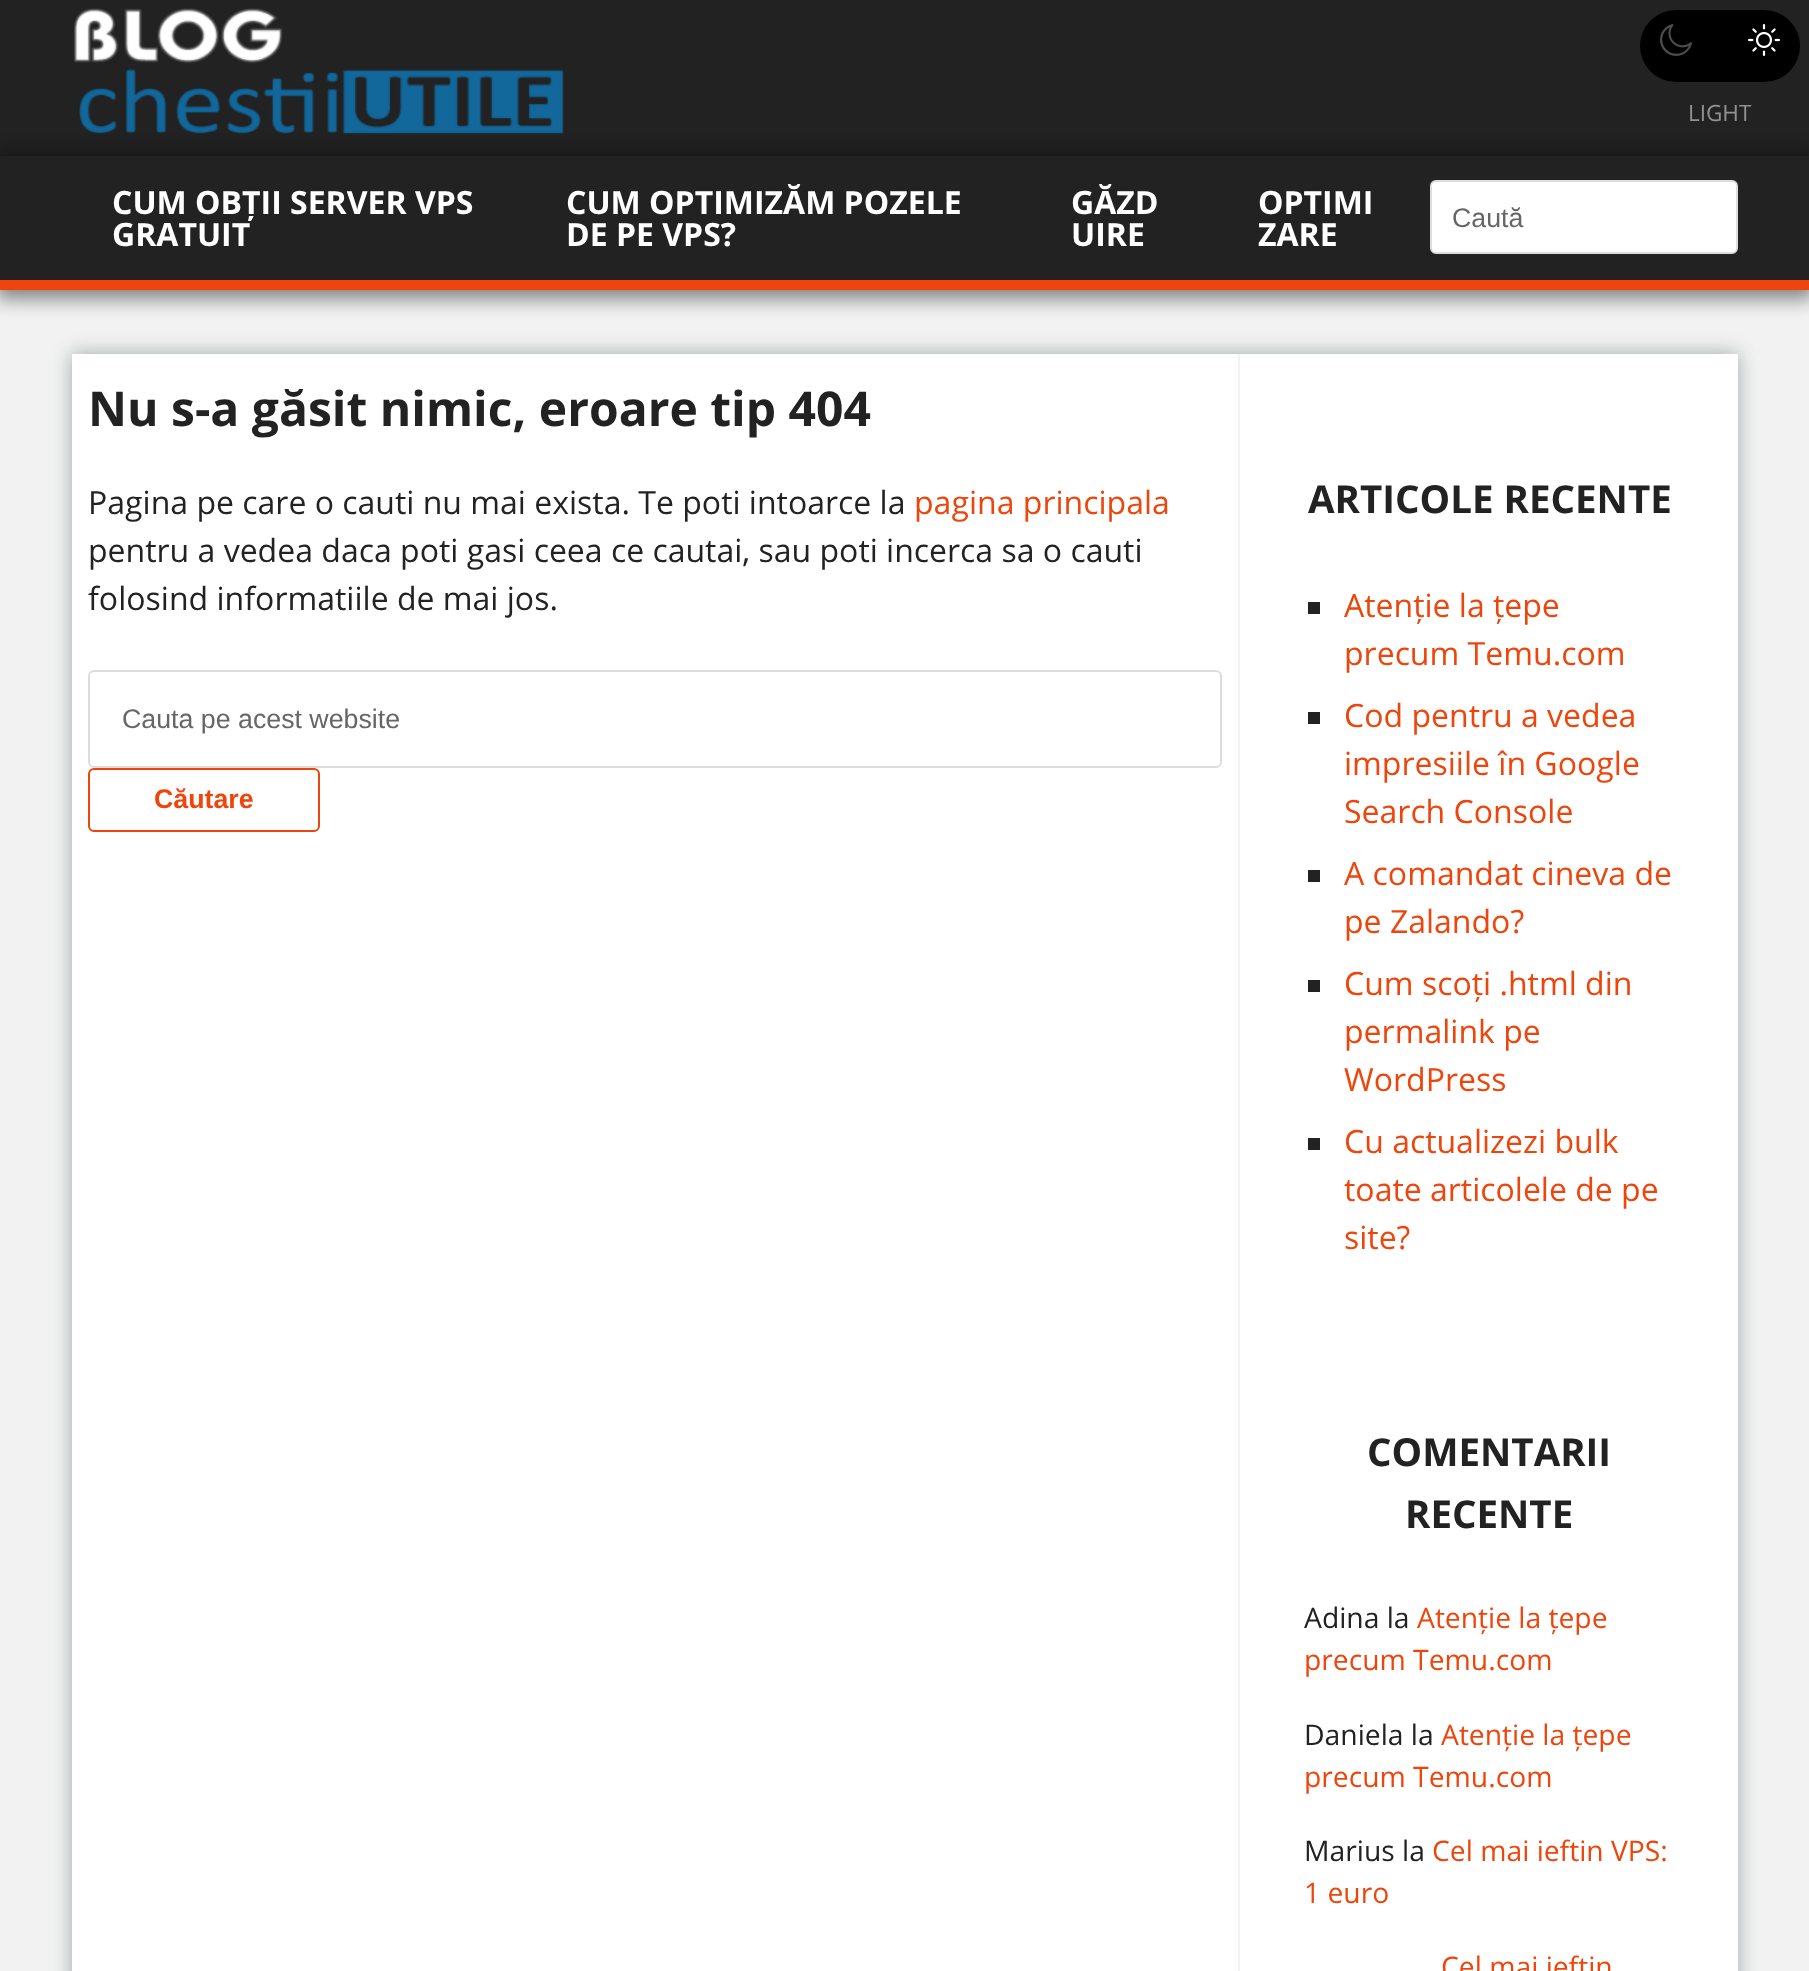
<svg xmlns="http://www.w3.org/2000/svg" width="1809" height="1971">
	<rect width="100%" height="100%" fill="#F2F2F2" />
	<rect x="0" y="0" width="1809" height="156" fill="#222222" />
	<rect x="-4" y="156" width="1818" height="142" fill="#020202" fill-opacity="0.5" filter="blur(10px)" />
	<image x="73" y="8" width="491" height="126" href="assets/img1.png" />
	<rect x="1640" y="10" width="160" height="72" rx="36" fill="#000000" />
	<image x="1660" y="24" width="32" height="32" href="assets/img2.png" />
	<image x="1748" y="24" width="32" height="32" href="assets/img3.png" />
	<text x="1688" y="121" font-family="Open Sans" font-size="22.5" fill="#919191">LIGHT</text>
	<rect x="0" y="156" width="1809" height="124" fill="#222222" />
	<rect x="0" y="280" width="1809" height="10" fill="#ED450C" />
	<g font-family="Open Sans" font-size="32" font-weight="700" fill="#FFFFFF">
		<text x="112" y="214">CUM OBȚII SERVER VPS</text>
		<text x="112" y="246">GRATUIT</text>
		<text x="566" y="214">CUM OPTIMIZĂM POZELE</text>
		<text x="566" y="246">DE PE VPS?</text>
		<text x="1071" y="214">GĂZD</text>
		<text x="1071" y="246">UIRE</text>
		<text x="1258" y="214">OPTIMI</text>
		<text x="1258" y="246">ZARE</text>
	</g>
	<rect x="1431" y="181" width="306" height="72" rx="5" fill="#FFFFFF" stroke="#DDDDDD" stroke-width="2" />
	<text x="1452" y="227" font-family="Liberation Sans" font-size="26.75" fill="#666666">Caută</text>
	<rect x="72" y="354" width="1666" height="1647" fill="#808D8E" fill-opacity="0.75" filter="blur(10px)" />
	<rect x="72" y="354" width="1666" height="1617" fill="#FFFFFF" />
	<text x="88" y="426" font-family="Open Sans" font-size="48" font-weight="700" fill="#222222">Nu s-a găsit nimic, eroare tip 404</text>
	<text x="88" y="514" font-family="Open Sans" font-size="32" fill="#222222">Pagina pe care o cauti nu mai exista. Te poti intoarce la</text>
	<text x="914" y="514" font-family="Open Sans" font-size="32" fill="#ED450C">pagina principala</text>
	<g font-family="Open Sans" font-size="32" fill="#222222">
		<text x="88" y="562">pentru a vedea daca poti gasi ceea ce cautai, sau poti incerca sa o cauti</text>
		<text x="88" y="610">folosind informatiile de mai jos.</text>
	</g>
	<rect x="89" y="671" width="1132" height="96" rx="5" fill="none" stroke="#DDDDDD" stroke-width="2" />
	<text x="122" y="728" font-family="Liberation Sans" font-size="26.75" fill="#666666">Cauta pe acest website</text>
	<rect x="89" y="769" width="230" height="62" rx="5" fill="none" stroke="#ED450C" stroke-width="2" />
	<text x="154" y="808" font-family="Liberation Sans" font-size="26.75" font-weight="700" fill="#ED450C">Căutare</text>
	<rect x="1238" y="354" width="2" height="1617" fill="#F2F2F2" />
	<text x="1308" y="513" font-family="Open Sans" font-size="38.5" font-weight="700" fill="#222222">ARTICOLE RECENTE</text>
	<rect x="1308" y="602" width="12" height="12" fill="#222222" />
	<g font-family="Open Sans" font-size="32" fill="#ED450C">
		<text x="1344" y="617">Atenție la țepe</text>
		<text x="1344" y="665">precum Temu.com</text>
	</g>
	<rect x="1308" y="712" width="12" height="12" fill="#222222" />
	<g font-family="Open Sans" font-size="32" fill="#ED450C">
		<text x="1344" y="727">Cod pentru a vedea</text>
		<text x="1344" y="775">impresiile în Google</text>
		<text x="1344" y="823">Search Console</text>
	</g>
	<rect x="1308" y="870" width="12" height="12" fill="#222222" />
	<g font-family="Open Sans" font-size="32" fill="#ED450C">
		<text x="1344" y="885">A comandat cineva de</text>
		<text x="1344" y="933">pe Zalando?</text>
	</g>
	<rect x="1308" y="980" width="12" height="12" fill="#222222" />
	<g font-family="Open Sans" font-size="32" fill="#ED450C">
		<text x="1344" y="995">Cum scoți .html din</text>
		<text x="1344" y="1043">permalink pe</text>
		<text x="1344" y="1091">WordPress</text>
	</g>
	<rect x="1308" y="1138" width="12" height="12" fill="#222222" />
	<g font-family="Open Sans" font-size="32" fill="#ED450C">
		<text x="1344" y="1153">Cu actualizezi bulk</text>
		<text x="1344" y="1201">toate articolele de pe</text>
		<text x="1344" y="1249">site?</text>
	</g>
	<g font-family="Open Sans" font-size="38.5" font-weight="700" fill="#222222">
		<text x="1367" y="1466">COMENTARII</text>
		<text x="1405" y="1528">RECENTE</text>
	</g>
	<text x="1304" y="1628" font-family="Open Sans" font-size="28.25" fill="#222222">Adina la</text>
	<g font-family="Open Sans" font-size="28.25" fill="#ED450C">
		<text x="1417" y="1628">Atenție la țepe</text>
		<text x="1304" y="1670">precum Temu.com</text>
	</g>
	<text x="1304" y="1745" font-family="Open Sans" font-size="28.25" fill="#222222">Daniela la</text>
	<g font-family="Open Sans" font-size="28.25" fill="#ED450C">
		<text x="1441" y="1745">Atenție la țepe</text>
		<text x="1304" y="1787">precum Temu.com</text>
	</g>
	<text x="1304" y="1861" font-family="Open Sans" font-size="28.25" fill="#222222">Marius la</text>
	<g font-family="Open Sans" font-size="28.25" fill="#ED450C">
		<text x="1432" y="1861">Cel mai ieftin VPS:</text>
		<text x="1304" y="1903">1 euro</text>
		<text x="1441" y="1977">Cel mai ieftin</text>
	</g>
</svg>
